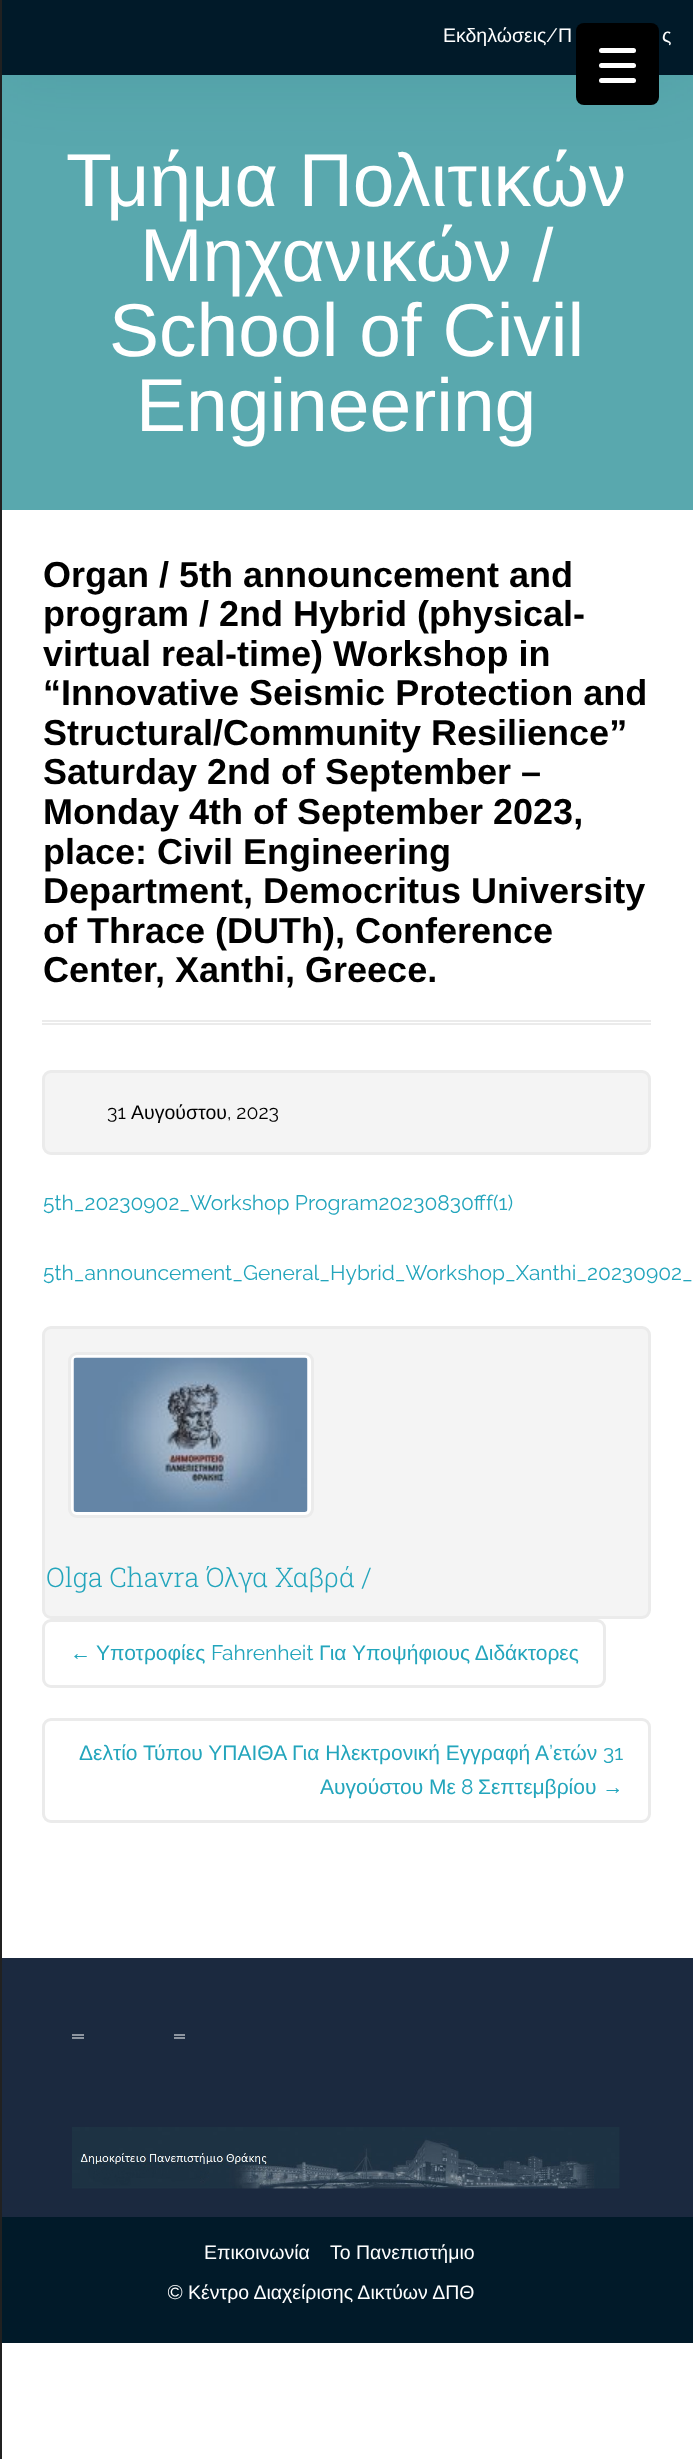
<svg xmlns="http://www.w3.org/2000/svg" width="693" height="2459">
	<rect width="100%" height="100%" fill="#FFFFFF" />
	<rect x="2" y="75" width="691" height="435" fill="#59A8AE" />
	<rect x="0" y="0" width="693" height="75" fill="#004F55" fill-opacity="0.1" filter="blur(37.5px)" />
	<rect x="0" y="0" width="2" height="2459" fill="#212121" />
	<rect x="2" y="0" width="691" height="75" fill="#011A29" />
	<rect x="576" y="23" width="83" height="82" rx="8" fill="#000000" />
	<rect x="599" y="63" width="37" height="5" rx="2.5" fill="#FFFFFF" />
	<rect x="599" y="48" width="37" height="5" rx="2.5" fill="#FFFFFF" />
	<rect x="599" y="78" width="37" height="5" rx="2.5" fill="#FFFFFF" />
	<text x="443" y="42" font-family="Liberation Sans" font-size="19.5" fill="#FFFFFF">Εκδηλώσεις</text>
	<text x="546" y="42" font-family="Raleway" font-size="19.5" fill="#FFFFFF">/</text>
	<g font-family="Liberation Sans" font-size="19.5" fill="#FFFFFF">
		<text x="558" y="42">Π</text>
		<text x="662" y="42">ς</text>
	</g>
	<g font-family="Liberation Sans" font-size="75" fill="#FFFFFF">
		<text x="66" y="206">Τμήμα Πολιτικών</text>
		<text x="140" y="281">Μηχανικών /</text>
		<text x="109" y="356">School of Civil</text>
		<text x="136" y="431">Engineering</text>
	</g>
	<g font-family="Liberation Sans" font-size="36" font-weight="700" fill="#000000">
		<text x="43" y="587">Organ / 5th announcement and</text>
		<text x="43" y="626">program / 2nd Hybrid (physical-</text>
		<text x="43" y="666">virtual real-time) Workshop in</text>
		<text x="43" y="705">“Innovative Seismic Protection and</text>
		<text x="43" y="745">Structural/Community Resilience”</text>
		<text x="43" y="784">Saturday 2nd of September –</text>
		<text x="43" y="824">Monday 4th of September 2023,</text>
		<text x="43" y="864">place: Civil Engineering</text>
		<text x="43" y="903">Department, Democritus University</text>
		<text x="43" y="943">of Thrace (DUTh), Conference</text>
		<text x="43" y="982">Center, Xanthi, Greece.</text>
	</g>
	<rect x="42" y="1020" width="609" height="2" fill="#EBEBEB" />
	<rect x="42" y="1023" width="609" height="2" fill="#EBEBEB" />
	<rect x="43.5" y="1071.5" width="606" height="82" rx="7.5" fill="#F4F4F4" stroke="#EBEBEB" stroke-width="3" />
	<text x="107" y="1119" font-family="Raleway" font-size="19.5" fill="#000000">31</text>
	<text x="131" y="1119" font-family="Liberation Sans" font-size="19.5" fill="#000000">Αυγούστου</text>
	<text x="227" y="1119" font-family="Raleway" font-size="19.5" fill="#000000">, 2023</text>
	<g font-family="Raleway" font-size="21" fill="#23A5BC">
		<text x="43" y="1210">5th_20230902_Workshop Program20230830fff(1)</text>
		<text x="43" y="1280">5th_announcement_General_Hybrid_Workshop_Xanthi_20230902_</text>
	</g>
	<rect x="43.5" y="1327.5" width="606" height="290" rx="7.5" fill="#F4F4F4" stroke="#EBEBEB" stroke-width="3" />
	<rect x="69.5" y="1353.5" width="243" height="163" rx="7.5" fill="#FFFFFF" stroke="#EBEBEB" stroke-width="3" />
	<image x="73" y="1357" width="235" height="155" href="assets/img1.png" />
	<text x="46" y="1587" font-family="Roboto Slab" font-size="27" font-weight="300" fill="#23A5BC">Olga Chavra Όλγα Χαβρά /</text>
	<rect x="43.5" y="1620.5" width="561" height="66" rx="7.5" fill="none" stroke="#EBEBEB" stroke-width="3" />
	<g font-family="Liberation Sans" font-size="21" fill="#23A5BC">
		<text x="70" y="1660">←</text>
		<text x="96" y="1660">Υποτροφίες</text>
	</g>
	<text x="211" y="1660" font-family="Raleway" font-size="21" fill="#23A5BC">Fahrenheit</text>
	<text x="319" y="1660" font-family="Liberation Sans" font-size="21" fill="#23A5BC">Για Υποψήφιους Διδάκτορες</text>
	<rect x="43.5" y="1719.5" width="606" height="102" rx="7.5" fill="none" stroke="#EBEBEB" stroke-width="3" />
	<text x="79" y="1760" font-family="Liberation Sans" font-size="21" fill="#23A5BC">Δελτίο Τύπου ΥΠΑΙΘΑ Για Ηλεκτρονική Εγγραφή Α</text>
	<text x="549" y="1760" font-family="Raleway" font-size="21" fill="#23A5BC">’</text>
	<text x="553" y="1760" font-family="Liberation Sans" font-size="21" fill="#23A5BC">ετών</text>
	<text x="603" y="1760" font-family="Raleway" font-size="21" fill="#23A5BC">31</text>
	<text x="320" y="1794" font-family="Liberation Sans" font-size="21" fill="#23A5BC">Αυγούστου Με</text>
	<text x="461" y="1794" font-family="Raleway" font-size="21" fill="#23A5BC">8</text>
	<text x="478" y="1794" font-family="Liberation Sans" font-size="21" fill="#23A5BC">Σεπτεμβρίου →</text>
	<rect x="2" y="1958" width="691" height="259" fill="#1B293F" />
	<rect x="72" y="2034" width="12" height="2" fill="#8D949F" />
	<rect x="72" y="2037" width="12" height="2" fill="#8D949F" />
	<rect x="174" y="2034" width="11" height="2" fill="#8D949F" />
	<rect x="174" y="2037" width="11" height="2" fill="#8D949F" />
	<image x="72" y="2127" width="548" height="62" href="assets/img2.png" />
	<rect x="2" y="2217" width="691" height="126" fill="#011A29" />
	<g font-family="Liberation Sans" font-size="19.5" fill="#FFFFFF">
		<text x="204" y="2259">Επικοινωνία</text>
		<text x="330" y="2259">Το Πανεπιστήμιο</text>
	</g>
	<text x="167" y="2299" font-family="Raleway" font-size="19.5" fill="#FFFFFF">©</text>
	<text x="188" y="2299" font-family="Liberation Sans" font-size="19.5" fill="#FFFFFF">Κέντρο Διαχείρισης Δικτύων ΔΠΘ</text>
</svg>
